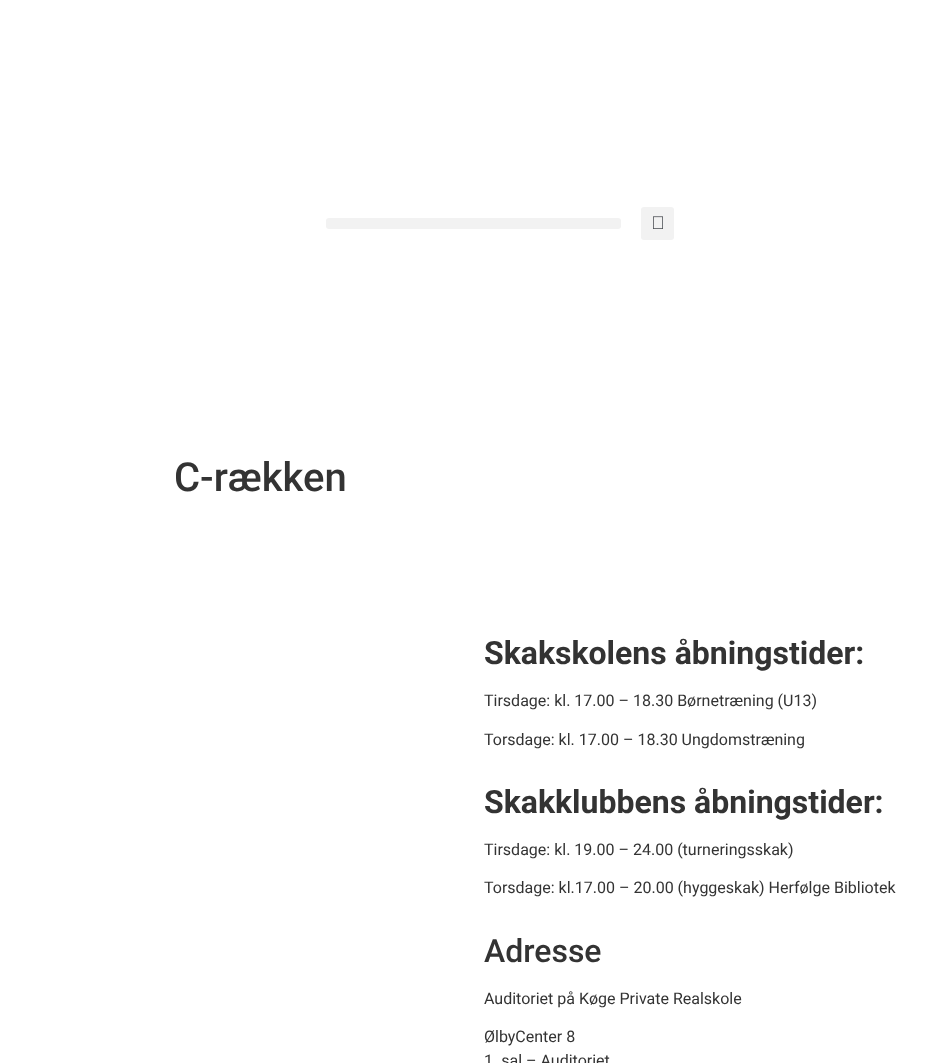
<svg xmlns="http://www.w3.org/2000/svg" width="947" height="1063">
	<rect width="100%" height="100%" fill="#FFFFFF" />
	<rect x="326" y="218" width="295" height="11" rx="3" fill="#F2F2F2" />
	<rect x="641" y="207" width="33" height="33" rx="3" fill="#F2F2F2" />
	<image x="653" y="216" width="10" height="13" href="assets/img1.png" />
	<text x="174" y="491" font-family="Roboto" font-size="40" font-weight="500" fill="#333333">C-rækken</text>
	<text x="484" y="664" font-family="Roboto" font-size="32" font-weight="700" fill="#333333">Skakskolens åbningstider:</text>
	<g font-family="Roboto" font-size="16" fill="#333333">
		<text x="484" y="706">Tirsdage: kl. 17.00 – 18.30 Børnetræning (U13)</text>
		<text x="484" y="745">Torsdage: kl. 17.00 – 18.30 Ungdomstræning</text>
	</g>
	<text x="484" y="813" font-family="Roboto" font-size="32" font-weight="700" fill="#333333">Skakklubbens åbningstider:</text>
	<g font-family="Roboto" font-size="16" fill="#333333">
		<text x="484" y="855">Tirsdage: kl. 19.00 – 24.00 (turneringsskak)</text>
		<text x="484" y="893">Torsdage: kl.17.00 – 20.00 (hyggeskak) Herfølge Bibliotek</text>
	</g>
	<text x="484" y="962" font-family="Roboto" font-size="32" font-weight="500" fill="#333333">Adresse</text>
	<g font-family="Roboto" font-size="16" fill="#333333">
		<text x="484" y="1004">Auditoriet på Køge Private Realskole</text>
		<text x="484" y="1042">ØlbyCenter 8</text>
		<text x="484" y="1066">1. sal – Auditoriet</text>
	</g>
</svg>
